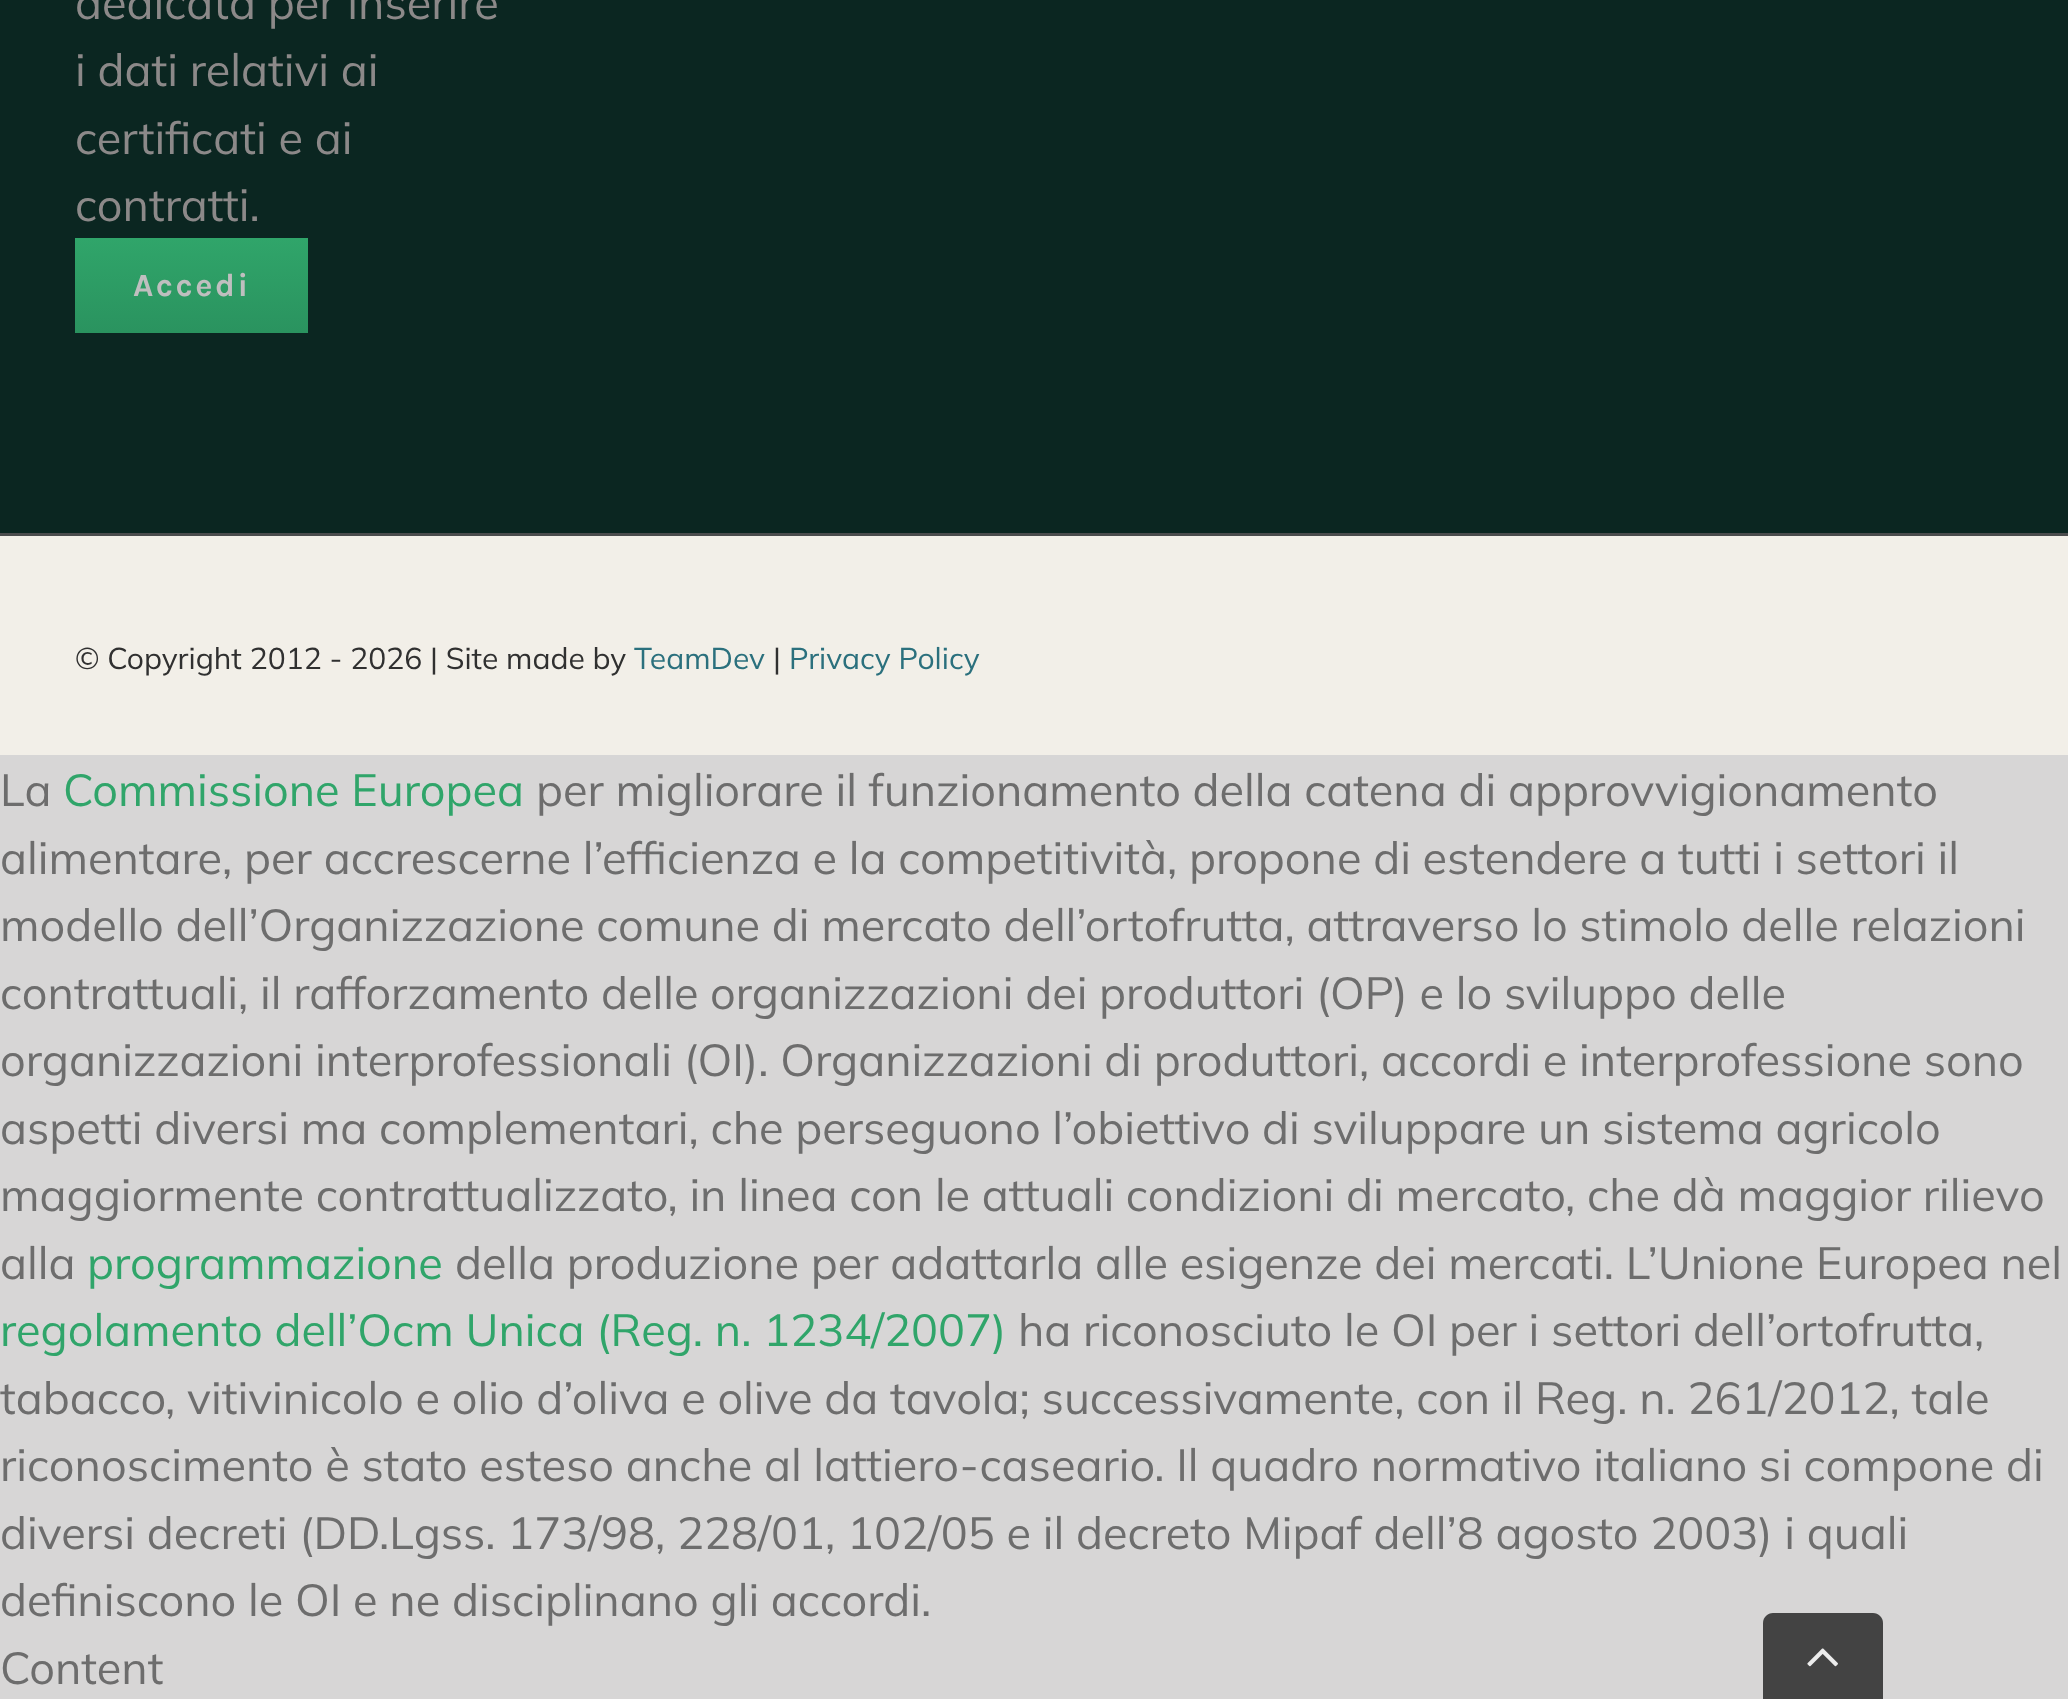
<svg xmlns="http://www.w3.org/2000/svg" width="2068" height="1699">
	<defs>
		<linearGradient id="g1" gradientUnits="userSpaceOnUse" x1="191" y1="238" x2="191" y2="333"><stop offset="0" stop-color="#30A56A" /><stop offset="1" stop-color="#2A935F" /></linearGradient>
	</defs>
	<rect width="100%" height="100%" fill="#D7D6D6" />
	<rect x="0" y="0" width="2068" height="533" fill="#0B2621" />
	<g font-family="Mulish" font-size="45" fill="#8C8989">
		<text x="75" y="19">dedicata per inserire</text>
		<text x="75" y="86">i dati relativi ai</text>
		<text x="75" y="154">certificati e ai</text>
		<text x="75" y="221">contratti.</text>
	</g>
	<rect x="75" y="238" width="233" height="95" fill="url(#g1)" />
	<text x="133" y="296" font-family="Karla" font-size="32.5" font-weight="700" letter-spacing="2.5" fill="#BFBFBF">Accedi</text>
	<rect x="0" y="536" width="2068" height="219" fill="#F2EFE8" />
	<rect x="0" y="533" width="2068" height="3" fill="#4B4C4D" />
	<text x="75" y="669" font-family="Mulish" font-size="30" fill="#303030">© Copyright 2012 - 2026 | Site made by</text>
	<text x="634" y="669" font-family="Mulish" font-size="30" fill="#2B707D">TeamDev</text>
	<text x="773" y="669" font-family="Mulish" font-size="30" fill="#303030">|</text>
	<text x="789" y="669" font-family="Mulish" font-size="30" fill="#2B707D">Privacy Policy</text>
	<text x="0" y="806" font-family="Mulish" font-size="45" fill="#6D6D6D">La</text>
	<text x="63" y="806" font-family="Mulish" font-size="45" fill="#30A56A">Commissione Europea</text>
	<g font-family="Mulish" font-size="45" fill="#6D6D6D">
		<text x="536" y="806">per migliorare il funzionamento della catena di approvvigionamento</text>
		<text x="0" y="874">alimentare, per accrescerne l’efficienza e la competitività, propone di estendere a tutti i settori il</text>
		<text x="0" y="941">modello dell’Organizzazione comune di mercato dell’ortofrutta, attraverso lo stimolo delle relazioni</text>
		<text x="0" y="1009">contrattuali, il rafforzamento delle organizzazioni dei produttori (OP) e lo sviluppo delle</text>
		<text x="0" y="1076">organizzazioni interprofessionali (OI). Organizzazioni di produttori, accordi e interprofessione sono</text>
		<text x="0" y="1144">aspetti diversi ma complementari, che perseguono l’obiettivo di sviluppare un sistema agricolo</text>
		<text x="0" y="1211">maggiormente contrattualizzato, in linea con le attuali condizioni di mercato, che dà maggior rilievo</text>
		<text x="0" y="1279">alla</text>
	</g>
	<text x="87" y="1279" font-family="Mulish" font-size="45" fill="#30A56A">programmazione</text>
	<text x="455" y="1279" font-family="Mulish" font-size="45" fill="#6D6D6D">della produzione per adattarla alle esigenze dei mercati. L’Unione Europea nel</text>
	<text x="0" y="1346" font-family="Mulish" font-size="45" fill="#30A56A">regolamento dell’Ocm Unica (Reg. n. 1234/2007)</text>
	<g font-family="Mulish" font-size="45" fill="#6D6D6D">
		<text x="1018" y="1346">ha riconosciuto le OI per i settori dell’ortofrutta,</text>
		<text x="0" y="1414">tabacco, vitivinicolo e olio d’oliva e olive da tavola; successivamente, con il Reg. n. 261/2012, tale</text>
		<text x="0" y="1481">riconoscimento è stato esteso anche al lattiero-caseario. Il quadro normativo italiano si compone di</text>
		<text x="0" y="1549">diversi decreti (DD.Lgss. 173/98, 228/01, 102/05 e il decreto Mipaf dell’8 agosto 2003) i quali</text>
		<text x="0" y="1616">definiscono le OI e ne disciplinano gli accordi.</text>
		<text x="0" y="1684">Content</text>
	</g>
	<path d="M1773 1613H1873C1878.5 1613 1883 1617.5 1883 1623V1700H1763V1623C1763 1617.5 1767.5 1613 1773 1613Z" fill="#434343" />
	<image x="1807" y="1648" width="31" height="19" href="assets/img1.png" />
</svg>
